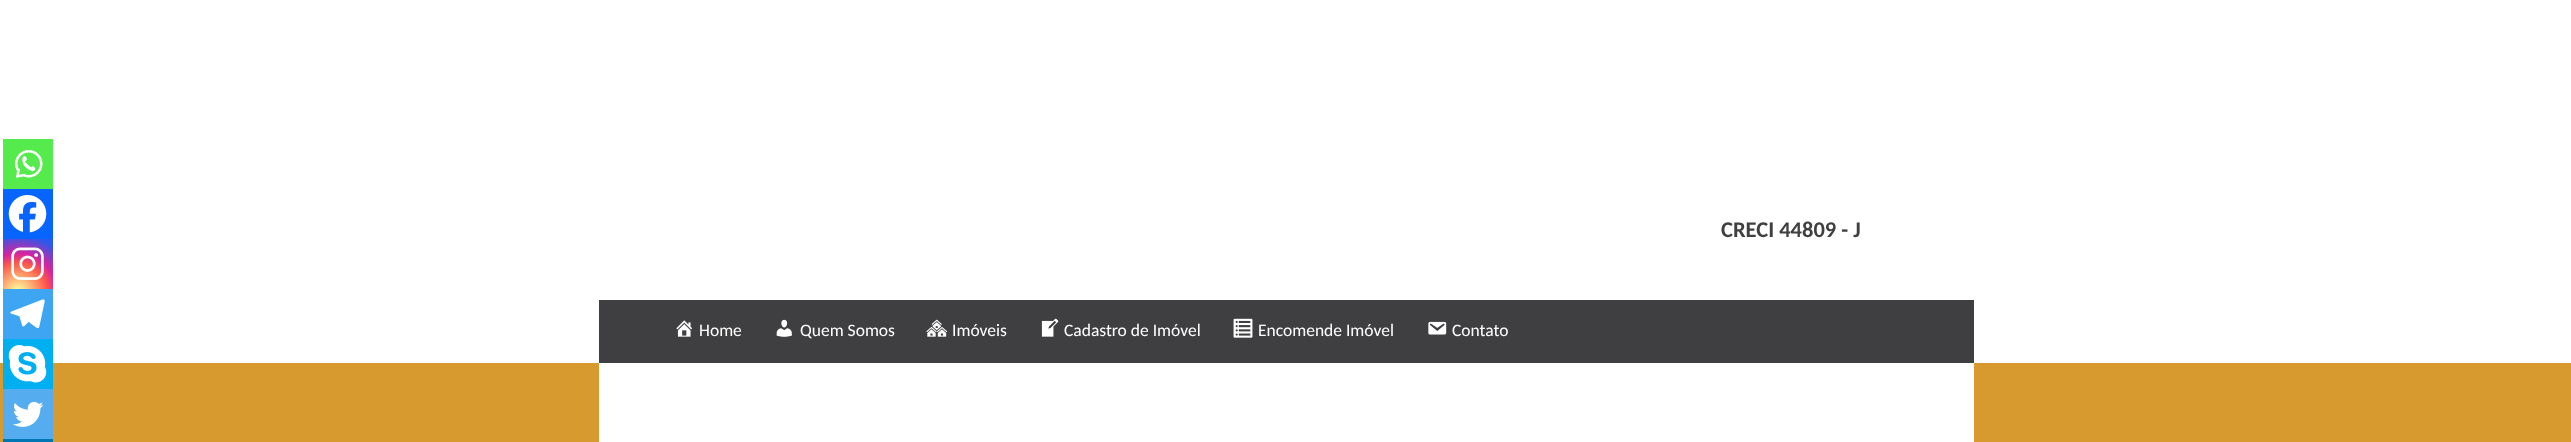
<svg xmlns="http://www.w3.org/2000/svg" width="2571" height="442">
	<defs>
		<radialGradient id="g1" gradientUnits="userSpaceOnUse" cx="18" cy="292" r="64"><stop offset="0" stop-color="#FDF497" /><stop offset="0.05" stop-color="#FDF497" /><stop offset="0.45" stop-color="#FD5949" /><stop offset="0.6" stop-color="#D6249F" /><stop offset="0.9" stop-color="#285AEB" /></radialGradient>
	</defs>
	<rect width="100%" height="100%" fill="#D69A2E" />
	<rect x="599" y="363" width="1375" height="79" fill="#FFFFFF" />
	<rect x="0" y="0" width="2571" height="363" fill="#FFFFFF" />
	<rect x="3" y="139" width="50" height="50" fill="#55EB4C" />
	<image x="15" y="150" width="28" height="28" href="assets/img1.png" />
	<rect x="3" y="189" width="50" height="50" fill="#0765FE" />
	<image x="8" y="195" width="39" height="38" href="assets/img2.png" />
	<rect x="3" y="239" width="50" height="50" fill="url(#g1)" />
	<image x="11" y="247" width="33" height="33" href="assets/img3.png" />
	<rect x="3" y="289" width="50" height="50" fill="#3DA5F1" />
	<image x="10" y="299" width="35" height="30" href="assets/img4.png" />
	<rect x="3" y="339" width="50" height="50" fill="#00AFF0" />
	<image x="8" y="345" width="39" height="38" href="assets/img5.png" />
	<rect x="3" y="389" width="50" height="50" fill="#55ACEE" />
	<image x="13" y="401" width="31" height="26" href="assets/img6.png" />
	<rect x="3" y="439" width="50" height="3" fill="#0077B5" />
	<text x="1721" y="237" font-family="Carlito" font-size="22.5" font-weight="700" fill="#404040">CRECI 44809 - J</text>
	<rect x="599" y="300" width="1375" height="63" fill="#3F3F41" />
	<image x="676" y="320" width="17" height="17" href="assets/img7.png" />
	<text x="699" y="336" font-family="Carlito" font-size="17.5" fill="#FFFFFF">Home</text>
	<image x="776" y="319" width="16" height="18" href="assets/img8.png" />
	<text x="800" y="336" font-family="Carlito" font-size="17.5" fill="#FFFFFF">Quem Somos</text>
	<image x="926" y="319" width="22" height="18" href="assets/img9.png" />
	<text x="952" y="336" font-family="Carlito" font-size="17.5" fill="#FFFFFF">Imóveis</text>
	<image x="1041" y="318" width="18" height="19" href="assets/img10.png" />
	<text x="1064" y="336" font-family="Carlito" font-size="17.5" fill="#FFFFFF">Cadastro de Imóvel</text>
	<image x="1233" y="318" width="20" height="20" href="assets/img11.png" />
	<text x="1258" y="336" font-family="Carlito" font-size="17.5" fill="#FFFFFF">Encomende Imóvel</text>
	<image x="1428" y="321" width="19" height="14" href="assets/img12.png" />
	<text x="1452" y="336" font-family="Carlito" font-size="17.5" fill="#FFFFFF">Contato</text>
</svg>
